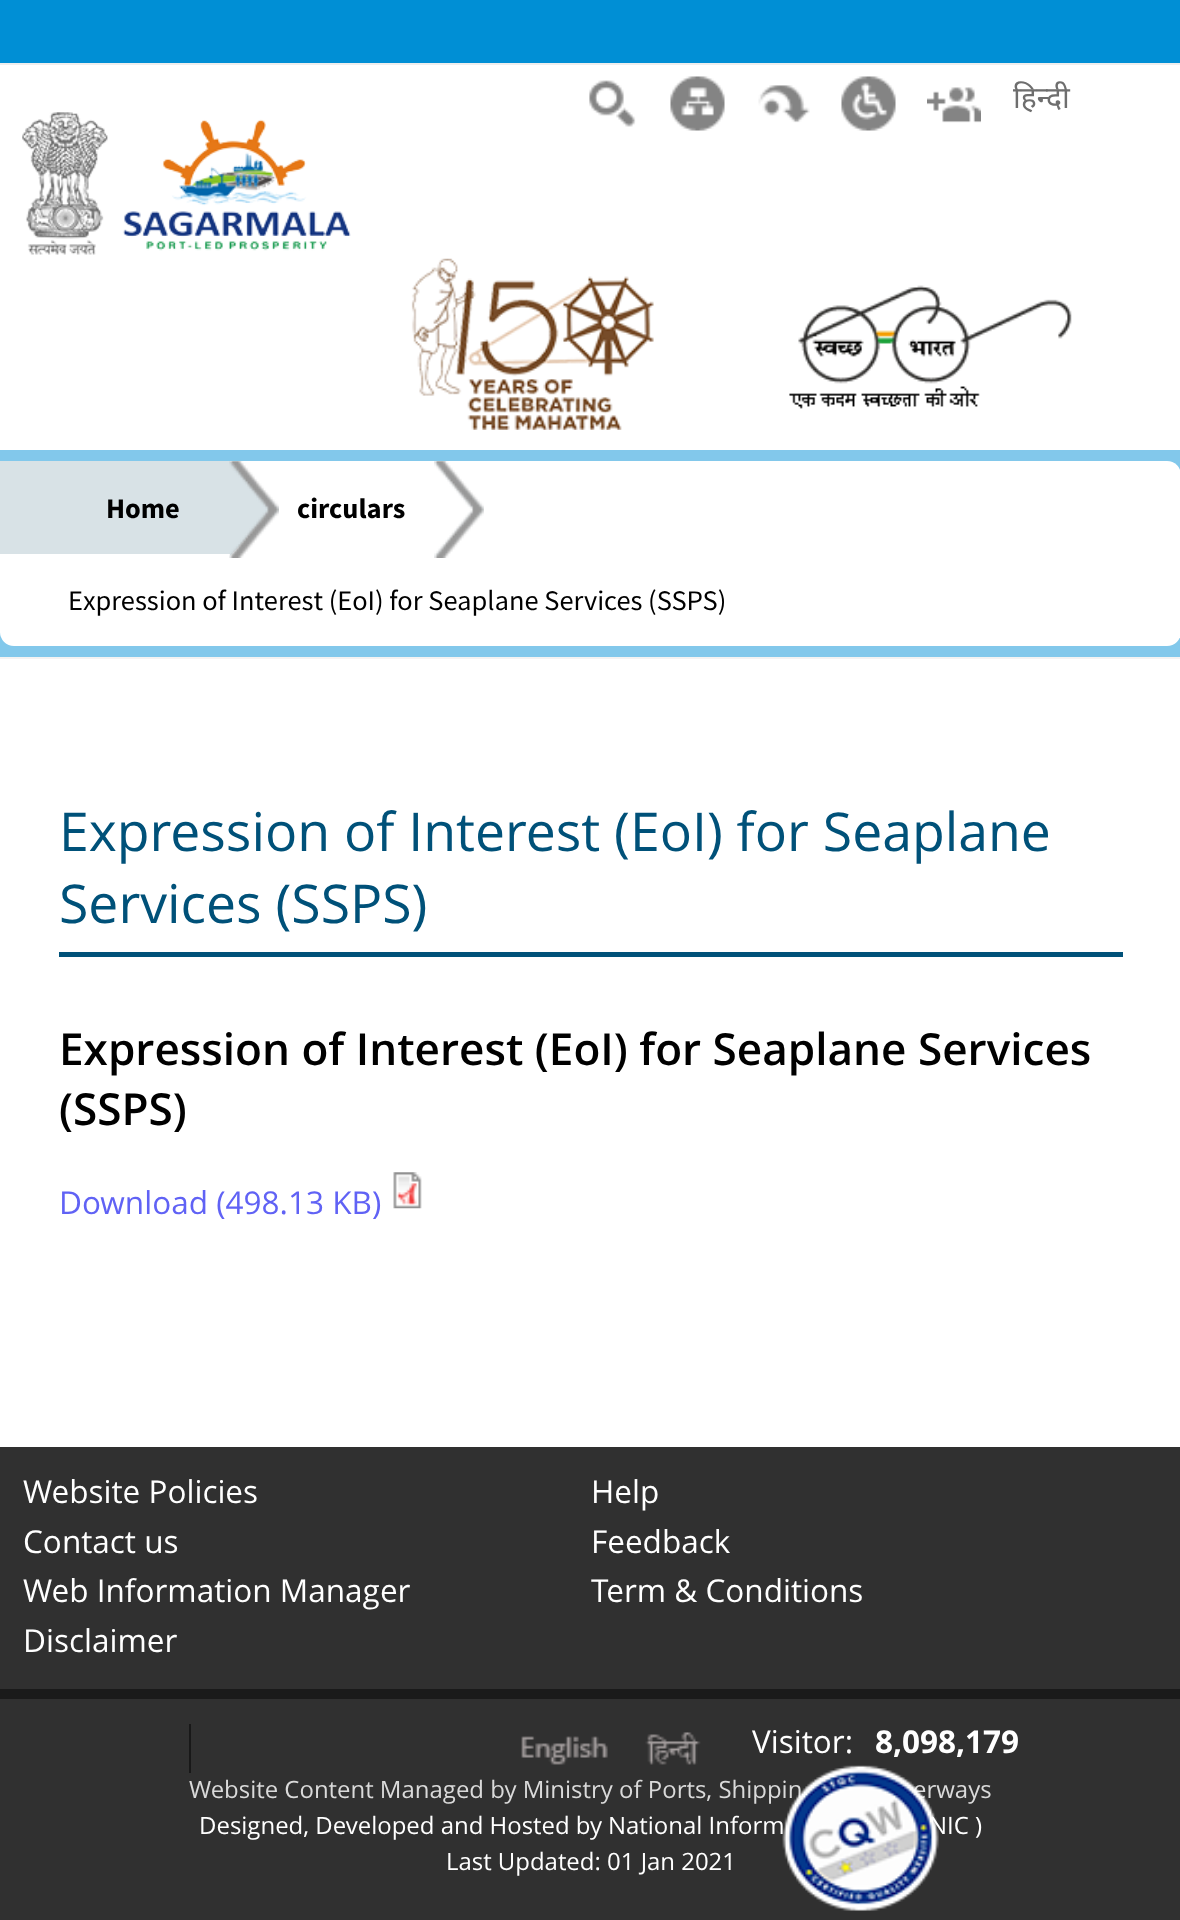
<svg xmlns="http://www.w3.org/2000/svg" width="1180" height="1920">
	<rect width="100%" height="100%" fill="#FFFFFF" />
	<rect x="0" y="0" width="1180" height="63" fill="#008FD5" />
	<rect x="0" y="63" width="1180" height="2" fill="#EEEEEE" />
	<image x="589" y="80" width="47" height="47" href="assets/img1.png" />
	<image x="670" y="76" width="55" height="55" href="assets/img2.png" />
	<image x="758" y="85" width="52" height="38" href="assets/img3.png" />
	<image x="841" y="76" width="55" height="55" href="assets/img4.png" />
	<image x="927" y="87" width="54" height="36" href="assets/img5.png" />
	<text x="1013" y="108" font-family="Noto Sans" font-size="30" fill="#6E6E6E">हिन्दी</text>
	<image x="22" y="112" width="329" height="143" href="assets/img6.png" />
	<image x="411" y="258" width="243" height="172" href="assets/img7.png" />
	<image x="789" y="285" width="283" height="124" href="assets/img8.png" />
	<rect x="0" y="450" width="1180" height="207" fill="#82C8EB" />
	<rect x="0" y="657" width="1180" height="2" fill="#F3F3F3" />
	<rect x="0" y="461" width="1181" height="185" rx="14" fill="#FFFFFF" />
	<rect x="0" y="461" width="230" height="93" fill="#D8E2E6" />
	<text x="106" y="518" font-family="Source Sans Pro" font-size="28.35" font-weight="700" fill="#000000">Home</text>
	<path d="M230 556V461L274 508Z" fill="#D8E2E6" />
	<image x="229" y="461" width="50" height="97" href="assets/img9.png" />
	<text x="297" y="518" font-family="Source Sans Pro" font-size="28.35" font-weight="700" fill="#000000">circulars</text>
	<image x="434" y="461" width="50" height="97" href="assets/img10.png" />
	<text x="68" y="610" font-family="Source Sans Pro" font-size="28.35" fill="#000000">Expression of Interest (EoI) for Seaplane Services (SSPS)</text>
	<rect x="59" y="952" width="1064" height="5" fill="#005179" />
	<g font-family="Open Sans" font-size="53.5" fill="#005179">
		<text x="59" y="851">Expression of Interest (EoI) for Seaplane</text>
		<text x="59" y="923">Services (SSPS)</text>
	</g>
	<g font-family="Open Sans" font-size="44.1" font-weight="600" fill="#000000">
		<text x="59" y="1065">Expression of Interest (EoI) for Seaplane Services</text>
		<text x="59" y="1125">(SSPS)</text>
	</g>
	<text x="59" y="1214" font-family="Open Sans" font-size="31.5" fill="#6062F5">Download (498.13 KB)</text>
	<image x="393" y="1172" width="29" height="37" href="assets/img11.png" />
	<rect x="0" y="1447" width="1180" height="242" fill="#303030" />
	<g font-family="Open Sans" font-size="31.5" fill="#FFFFFF">
		<text x="23" y="1503">Website Policies</text>
		<text x="591" y="1503">Help</text>
		<text x="23" y="1553">Contact us</text>
		<text x="591" y="1553">Feedback</text>
		<text x="23" y="1602">Web Information Manager</text>
		<text x="591" y="1602">Term &amp; Conditions</text>
		<text x="23" y="1652">Disclaimer</text>
	</g>
	<rect x="0" y="1699" width="1180" height="221" fill="#303030" />
	<rect x="0" y="1689" width="1180" height="10" fill="#1A1A1A" />
	<text x="752" y="1753" font-family="Open Sans" font-size="31.5" fill="#FFFFFF">Visitor:</text>
	<text x="875" y="1753" font-family="Open Sans" font-size="31.5" font-weight="700" fill="#FFFFFF">8,098,179</text>
	<rect x="189" y="1724" width="2" height="49" fill="#181818" />
	<image x="521" y="1736" width="87" height="29" href="assets/img12.png" />
	<image x="645" y="1732" width="56" height="33" href="assets/img13.png" />
	<g font-family="Open Sans" font-size="23.95" fill="#DADADA">
		<text x="189" y="1798">Website Content Managed by Ministry of Ports, Shippin</text>
		<text x="913" y="1798">erways</text>
	</g>
	<g font-family="Open Sans" font-size="23.95" fill="#FFFFFF">
		<text x="199" y="1834">Designed, Developed and Hosted by</text>
		<text x="608" y="1834">National Inform</text>
		<text x="929" y="1834">NIC )</text>
		<text x="446" y="1870">Last Updated: 01 Jan 2021</text>
	</g>
	<image x="782" y="1765" width="157" height="146" href="assets/img14.png" />
</svg>
